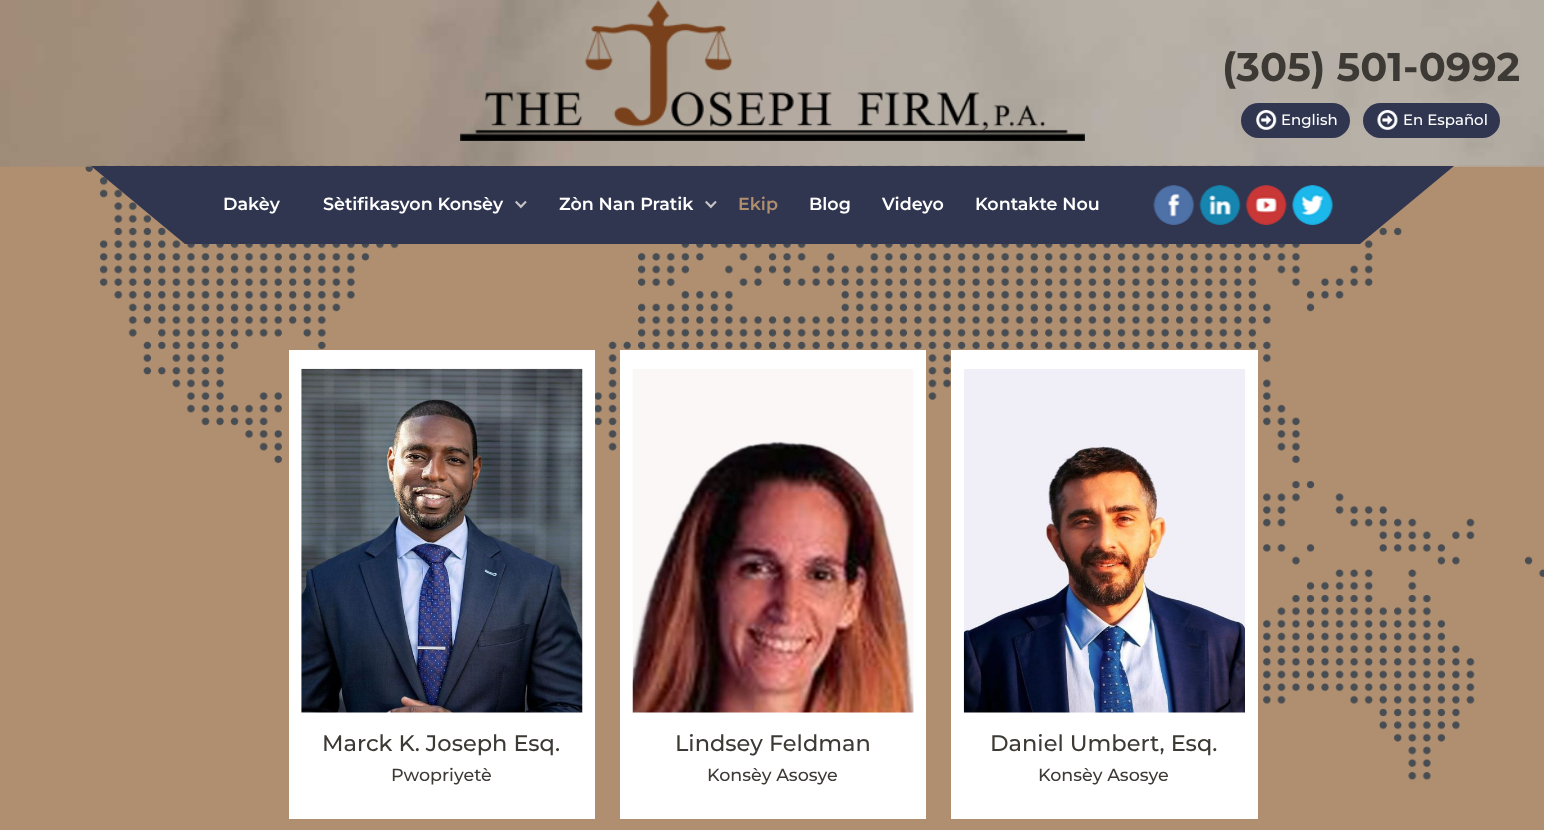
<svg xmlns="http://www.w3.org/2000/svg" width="1544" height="830">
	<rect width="100%" height="100%" fill="#B08F70" />
	<image x="85" y="165" width="1459" height="615" href="assets/img1.png" />
	<image x="0" y="0" width="1544" height="167" href="assets/img2.png" />
	<image x="460" y="0" width="625" height="141" href="assets/img3.png" />
	<text x="1222" y="81" font-family="Montserrat" font-size="40" font-weight="700" fill="#3D3935">(305) 501-0992</text>
	<rect x="1241" y="103" width="109" height="35" rx="17.5" fill="#313650" />
	<image x="1256" y="110" width="21" height="20" href="assets/img4.png" />
	<text x="1281" y="125" font-family="Montserrat" font-size="15" font-weight="500" fill="#FFFFFF">English</text>
	<rect x="1363" y="103" width="137" height="35" rx="17.5" fill="#313650" />
	<image x="1377" y="110" width="21" height="20" href="assets/img5.png" />
	<text x="1403" y="125" font-family="Montserrat" font-size="15" font-weight="500" fill="#FFFFFF">En Español</text>
	<rect x="185" y="166" width="1175" height="78" fill="#313650" />
	<path d="M91 166H185V244Z" fill="#313650" />
	<g font-family="Montserrat" font-size="17.5" font-weight="600" fill="#FFFFFF">
		<text x="223" y="210">Dakèy</text>
		<text x="323" y="210">Sètifikasyon Konsèy</text>
	</g>
	<image x="515" y="200" width="12" height="9" href="assets/img6.png" />
	<text x="559" y="210" font-family="Montserrat" font-size="17.5" font-weight="600" fill="#FFFFFF">Zòn Nan Pratik</text>
	<image x="705" y="200" width="12" height="9" href="assets/img6.png" />
	<text x="738" y="210" font-family="Montserrat" font-size="17.5" font-weight="600" fill="#B08F70">Ekip</text>
	<g font-family="Montserrat" font-size="17.5" font-weight="600" fill="#FFFFFF">
		<text x="809" y="210">Blog</text>
		<text x="882" y="210">Videyo</text>
		<text x="975" y="210">Kontakte Nou</text>
	</g>
	<image x="1153" y="185" width="42" height="40" href="assets/img7.png" />
	<image x="1199" y="185" width="42" height="40" href="assets/img8.png" />
	<image x="1245" y="185" width="42" height="40" href="assets/img9.png" />
	<image x="1292" y="185" width="41" height="40" href="assets/img10.png" />
	<path d="M1360 166H1454L1360 244Z" fill="#313650" />
	<rect x="289" y="350" width="306" height="469" fill="#FFFFFF" />
	<image x="301" y="368" width="282" height="345" href="assets/img11.png" />
	<text x="322" y="751" font-family="Montserrat" font-size="22.5" font-weight="500" fill="#3D3935">Marck K. Joseph Esq.</text>
	<text x="391" y="781" font-family="Montserrat" font-size="17.5" font-weight="500" fill="#3D3935">Pwopriyetè</text>
	<rect x="620" y="350" width="306" height="469" fill="#FFFFFF" />
	<image x="632" y="369" width="282" height="344" href="assets/img12.png" />
	<text x="675" y="751" font-family="Montserrat" font-size="22.5" font-weight="500" fill="#3D3935">Lindsey Feldman</text>
	<text x="707" y="781" font-family="Montserrat" font-size="17.5" font-weight="500" fill="#3D3935">Konsèy Asosye</text>
	<rect x="951" y="350" width="307" height="469" fill="#FFFFFF" />
	<image x="963" y="369" width="282" height="344" href="assets/img13.png" />
	<text x="990" y="751" font-family="Montserrat" font-size="22.5" font-weight="500" fill="#3D3935">Daniel Umbert, Esq.</text>
	<text x="1038" y="781" font-family="Montserrat" font-size="17.5" font-weight="500" fill="#3D3935">Konsèy Asosye</text>
</svg>
